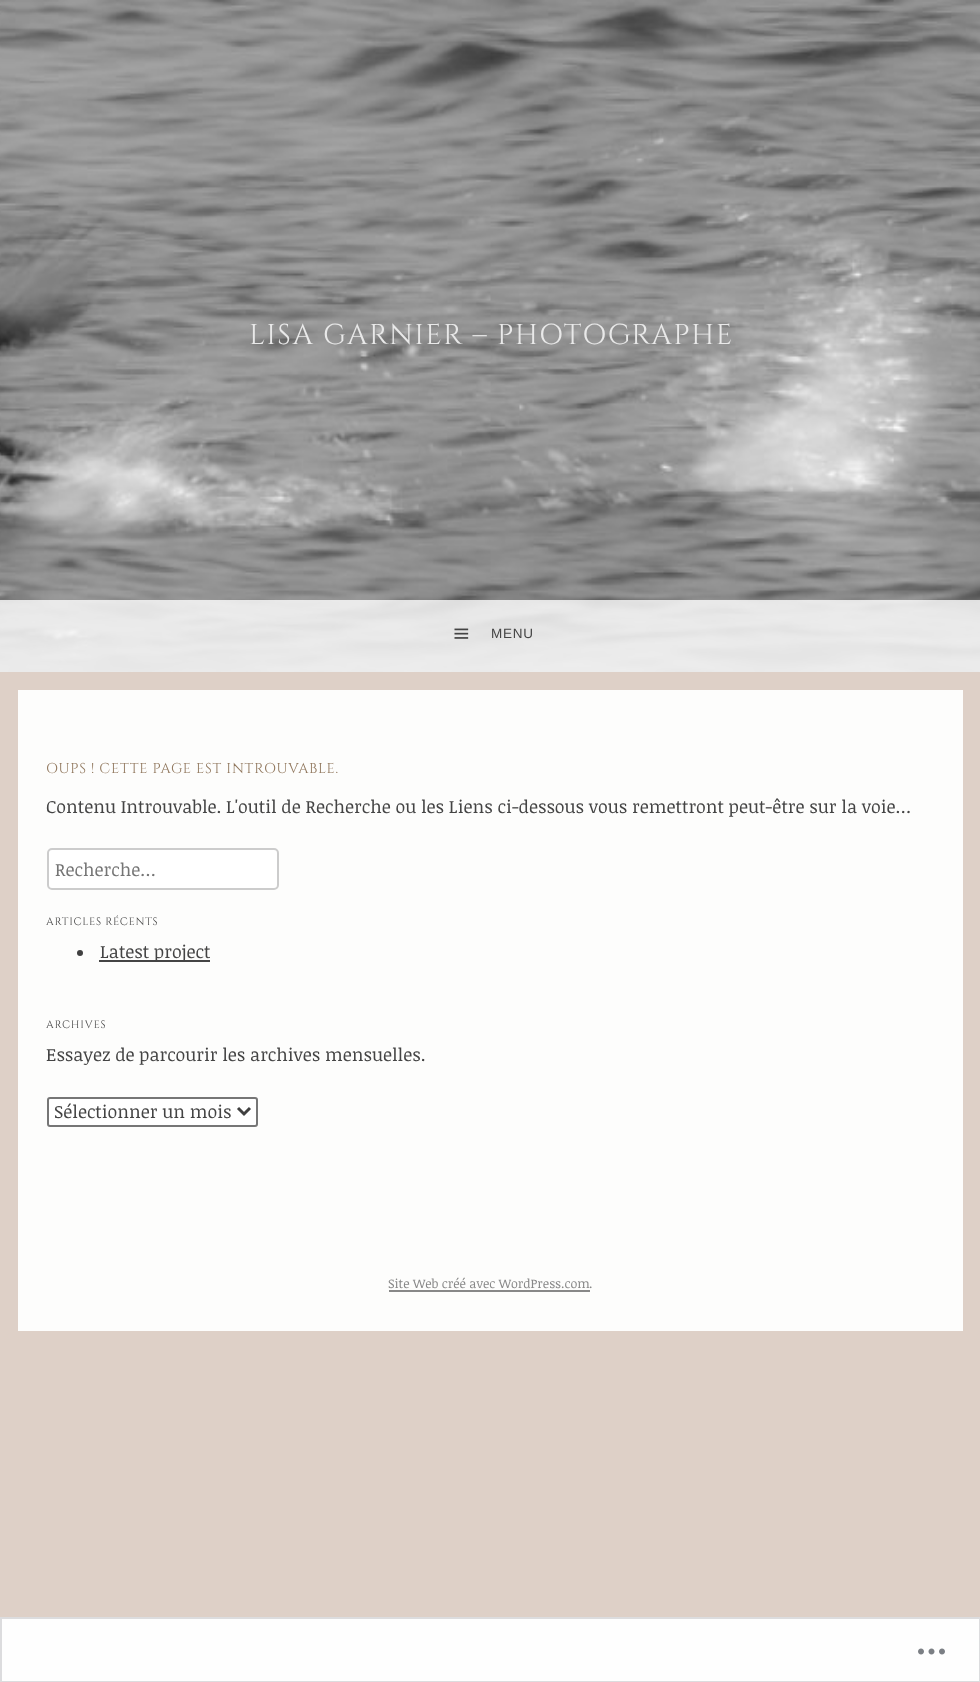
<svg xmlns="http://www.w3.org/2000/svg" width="980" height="1682">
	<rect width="100%" height="100%" fill="#DED0C7" />
	<image x="0" y="0" width="980" height="672" href="assets/img1.png" />
	<text x="249" y="344" font-family="Cinzel" font-size="28.6" letter-spacing="1.5" fill="#E9E9E9">LISA GARNIER – PHOTOGRAPHE</text>
	<rect x="0" y="600" width="980" height="72" fill="#FFFFFF" fill-opacity="0.8" />
	<image x="454" y="628" width="15" height="11" href="assets/img2.png" />
	<text x="491" y="638" font-family="Liberation Sans" font-size="13.5" letter-spacing="0.75" fill="#444444">MENU</text>
	<rect x="18" y="690" width="945" height="641" fill="#FDFDFC" />
	<text x="46" y="773" font-family="Cinzel" font-size="14.25" letter-spacing="0.75" fill="#91785E">OUPS ! CETTE PAGE EST INTROUVABLE.</text>
	<text x="46" y="813" font-family="Noticia Text" font-size="17.85" fill="#444444">Contenu Introuvable. L'outil de Recherche ou les Liens ci-dessous vous remettront peut-être sur la voie…</text>
	<rect x="48" y="849" width="230" height="40" rx="4" fill="#FFFFFF" stroke="#CCCCCC" stroke-width="2" />
	<text x="55" y="876" font-family="Noticia Text" font-size="17.85" fill="#757575">Recherche…</text>
	<text x="46" y="925" font-family="Cinzel" font-size="10.75" letter-spacing="0.75" fill="#444444">ARTICLES RÉCENTS</text>
	<circle cx="80" cy="953" r="3" fill="#404040" />
	<rect x="99" y="960" width="111" height="2" fill="#444444" />
	<text x="100" y="958" font-family="Noticia Text" font-size="17.85" fill="#444444">Latest project</text>
	<text x="46" y="1028" font-family="Cinzel" font-size="10.75" letter-spacing="0.75" fill="#444444">ARCHIVES</text>
	<text x="46" y="1061" font-family="Noticia Text" font-size="17.85" fill="#444444">Essayez de parcourir les archives mensuelles.</text>
	<rect x="48" y="1098" width="209" height="28" rx="2" fill="#FFFFFF" stroke="#767676" stroke-width="2" />
	<path d="M238 1108L244 1114L250 1108" fill="none" stroke="#404040" stroke-width="3" />
	<text x="54" y="1118" font-family="Noticia Text" font-size="17.85" fill="#444444">Sélectionner un mois</text>
	<text x="388" y="1288" font-family="Noticia Text" font-size="12.6" fill="#888888">Site Web créé avec WordPress.com</text>
	<rect x="389" y="1290" width="201" height="2" fill="#888888" />
	<text x="589" y="1288" font-family="Noticia Text" font-size="12.6" fill="#888888">.</text>
	<rect x="1" y="1618" width="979" height="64" fill="#FEFEFE" stroke="#DCDCDE" stroke-width="2" />
	<image x="918" y="1648" width="27" height="7" href="assets/img3.png" />
</svg>
